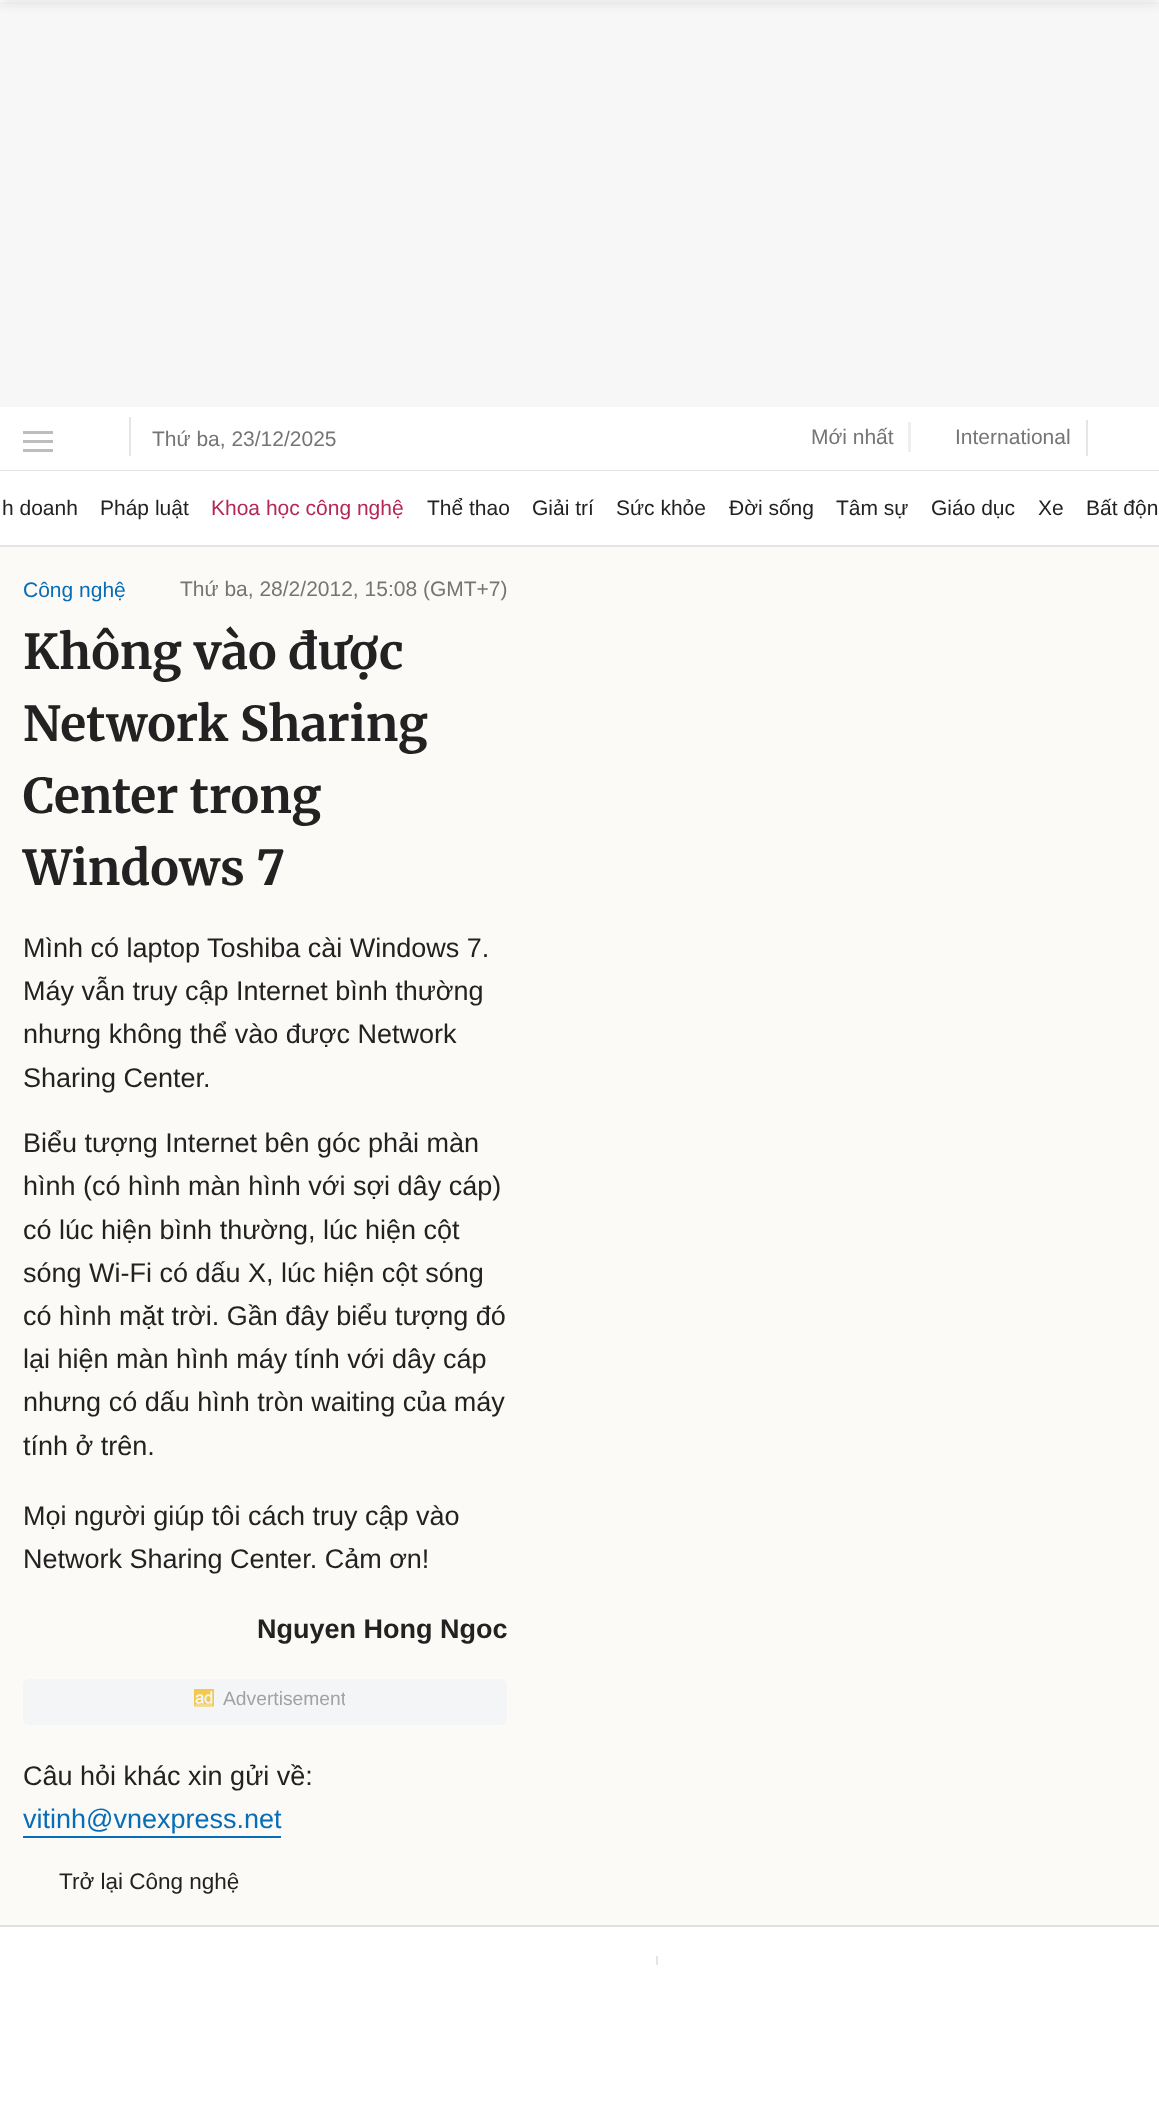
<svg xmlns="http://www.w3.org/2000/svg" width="1159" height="2128">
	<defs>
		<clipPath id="clip1"><rect x="185" y="1686" width="160" height="24" /></clipPath>
	</defs>
	<rect width="100%" height="100%" fill="#FFFFFF" />
	<rect x="0" y="2" width="1159" height="405" fill="#F7F7F7" />
	<rect x="0" y="470" width="1159" height="1" fill="#E5E5E5" />
	<rect x="23" y="431" width="30" height="3" fill="#BDBDBD" />
	<rect x="23" y="440" width="30" height="3" fill="#BDBDBD" />
	<rect x="23" y="449" width="30" height="3" fill="#BDBDBD" />
	<rect x="129" y="417" width="2" height="39" fill="#E5E5E5" />
	<g font-family="Liberation Sans" font-size="21" fill="#757575">
		<text x="152" y="446">Thứ ba, 23/12/2025</text>
		<text x="811" y="444">Mới nhất</text>
	</g>
	<rect x="908" y="422" width="3" height="30" fill="#EFEFEF" />
	<text x="955" y="444" font-family="Liberation Sans" font-size="21" fill="#757575">International</text>
	<rect x="1086" y="420" width="2" height="36" fill="#E5E5E5" />
	<rect x="0" y="545" width="1159" height="2" fill="#E5E5E5" />
	<g font-family="Liberation Sans" font-size="21" fill="#222222">
		<text x="2" y="515">h doanh</text>
		<text x="100" y="515">Pháp luật</text>
	</g>
	<text x="211" y="515" font-family="Liberation Sans" font-size="21" fill="#B52759">Khoa học công nghệ</text>
	<g font-family="Liberation Sans" font-size="21" fill="#222222">
		<text x="427" y="515">Thể thao</text>
		<text x="532" y="515">Giải trí</text>
		<text x="616" y="515">Sức khỏe</text>
		<text x="729" y="515">Đời sống</text>
		<text x="836" y="515">Tâm sự</text>
		<text x="931" y="515">Giáo dục</text>
		<text x="1038" y="515">Xe</text>
		<text x="1086" y="515">Bất độn</text>
	</g>
	<rect x="0" y="547" width="1159" height="1378" fill="#FCFAF6" />
	<rect x="0" y="1925" width="1159" height="2" fill="#E0E0E0" />
	<rect x="0" y="-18" width="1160" height="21" fill="#000000" fill-opacity="0.1" filter="blur(6px)" />
	<text x="23" y="597" font-family="Liberation Sans" font-size="21" fill="#076DB6">Công nghệ</text>
	<text x="180" y="596" font-family="Liberation Sans" font-size="21" fill="#757575">Thứ ba, 28/2/2012, 15:08 (GMT+7)</text>
	<g font-family="Merriweather" font-size="48" font-weight="700" fill="#222222">
		<text x="23" y="669">Không vào được</text>
		<text x="23" y="741">Network Sharing</text>
		<text x="23" y="813">Center trong</text>
		<text x="23" y="885">Windows 7</text>
	</g>
	<g font-family="Liberation Sans" font-size="27" fill="#222222">
		<text x="23" y="957">Mình có laptop Toshiba cài Windows 7.</text>
		<text x="23" y="1000">Máy vẫn truy cập Internet bình thường</text>
		<text x="23" y="1043">nhưng không thể vào được Network</text>
		<text x="23" y="1087">Sharing Center.</text>
		<text x="23" y="1152">Biểu tượng Internet bên góc phải màn</text>
		<text x="23" y="1195">hình (có hình màn hình với sợi dây cáp)</text>
		<text x="23" y="1239">có lúc hiện bình thường, lúc hiện cột</text>
		<text x="23" y="1282">sóng Wi-Fi có dấu X, lúc hiện cột sóng</text>
		<text x="23" y="1325">có hình mặt trời. Gần đây biểu tượng đó</text>
		<text x="23" y="1368">lại hiện màn hình máy tính với dây cáp</text>
		<text x="23" y="1411">nhưng có dấu hình tròn waiting của máy</text>
		<text x="23" y="1455">tính ở trên.</text>
		<text x="23" y="1525">Mọi người giúp tôi cách truy cập vào</text>
		<text x="23" y="1568">Network Sharing Center. Cảm ơn!</text>
	</g>
	<text x="257" y="1638" font-family="Liberation Sans" font-size="27" font-weight="700" fill="#222222">Nguyen Hong Ngoc</text>
	<rect x="23" y="1679" width="484" height="46" rx="6" fill="#F4F5F6" />
	<image x="194" y="1689" width="20" height="18" href="assets/img1.png" />
	<g clip-path="url(#clip1)">
		<text x="223" y="1705" font-family="Liberation Sans" font-size="19.25" fill="#A2A2A2">Advertisement</text>
	</g>
	<text x="23" y="1785" font-family="Liberation Sans" font-size="27" fill="#222222">Câu hỏi khác xin gửi về:</text>
	<text x="23" y="1828" font-family="Liberation Sans" font-size="27" fill="#076DB6">vitinh@vnexpress.net</text>
	<rect x="23" y="1836" width="258" height="2" fill="#076DB6" />
	<text x="59" y="1889" font-family="Liberation Sans" font-size="22.5" fill="#222222">Trở lại Công nghệ</text>
	<rect x="656" y="1956" width="2" height="9" fill="#E5E5E5" />
</svg>
